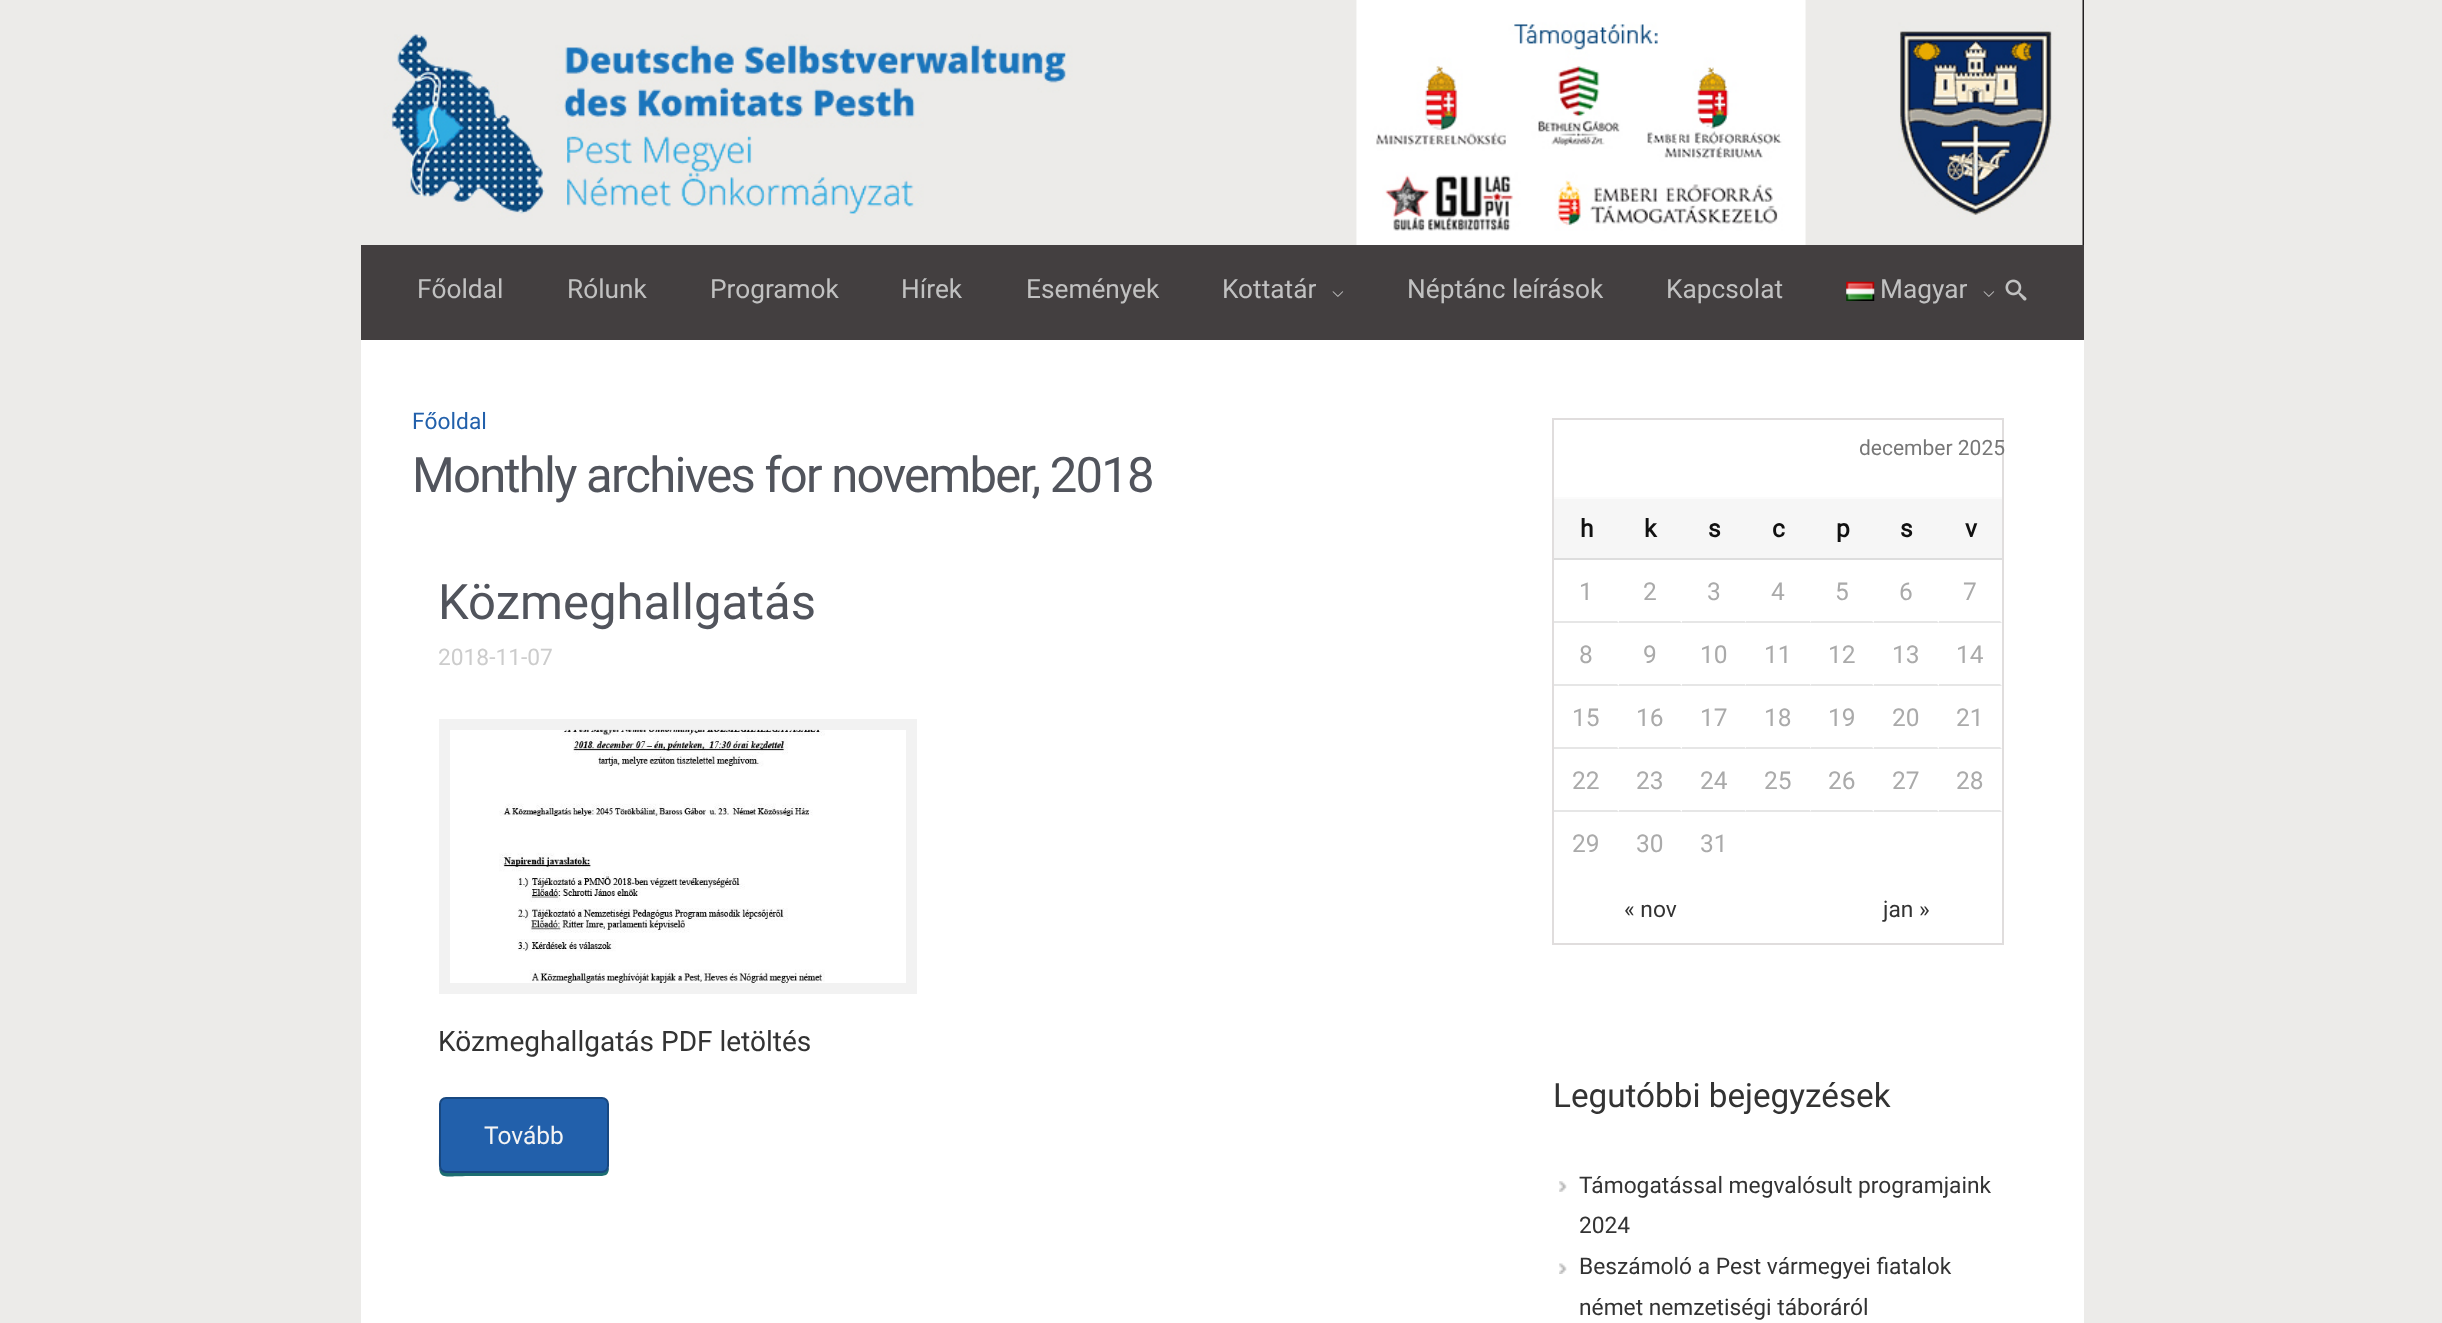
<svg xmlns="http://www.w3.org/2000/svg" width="2442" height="1323">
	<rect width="100%" height="100%" fill="#ECEBE9" />
	<rect x="2082" y="0" width="2" height="245" fill="#231F20" />
	<image x="361" y="0" width="1722" height="245" href="assets/img1.png" />
	<rect x="361" y="245" width="1723" height="95" fill="#433F40" />
	<g font-family="Roboto" font-size="26.25" fill="#C1C1C1">
		<text x="417" y="298">Főoldal</text>
		<text x="567" y="298">Rólunk</text>
		<text x="710" y="298">Programok</text>
		<text x="901" y="298">Hírek</text>
		<text x="1026" y="298">Események</text>
		<text x="1222" y="298">Kottatár</text>
	</g>
	<image x="1332" y="291" width="12" height="6" href="assets/img2.png" />
	<g font-family="Roboto" font-size="26.25" fill="#C1C1C1">
		<text x="1407" y="298">Néptánc leírások</text>
		<text x="1666" y="298">Kapcsolat</text>
	</g>
	<image x="1846" y="281" width="29" height="20" href="assets/img3.png" />
	<text x="1880" y="298" font-family="Roboto" font-size="26.25" fill="#C1C1C1">Magyar</text>
	<image x="1983" y="291" width="12" height="6" href="assets/img2.png" />
	<image x="2005" y="279" width="22" height="22" href="assets/img4.png" />
	<rect x="361" y="340" width="1723" height="983" fill="#FFFFFF" />
	<text x="412" y="429" font-family="Roboto" font-size="22.75" fill="#2260AB">Főoldal</text>
	<text x="412" y="492" font-family="Roboto" font-size="49" letter-spacing="-1.75" fill="#51545C">Monthly archives for november, 2018</text>
	<text x="438" y="619" font-family="Roboto" font-size="49" fill="#51545C">Közmeghallgatás</text>
	<text x="438" y="665" font-family="Roboto" font-size="22.75" fill="#CCCCCC">2018-11-07</text>
	<rect x="444.5" y="724.5" width="467" height="264" fill="none" stroke="#F2F2F2" stroke-width="11" />
	<image x="499" y="729" width="326" height="254" href="assets/img5.png" />
	<text x="438" y="1051" font-family="Roboto" font-size="28" fill="#333333">Közmeghallgatás PDF letöltés</text>
	<path d="M439 1106V1149C439 1182 436 1176 472 1176H602L606 1175C609 1173 609 1169 609 1166C609 1169 606 1172 602 1172H446C442 1172 439 1169 439 1166Z" fill="#1D6E72" />
	<rect x="440" y="1098" width="168" height="74" rx="6" fill="#2260AB" stroke="#184881" stroke-width="2" />
	<text x="484" y="1144" font-family="Roboto" font-size="24.5" fill="#F4F4F4">Tovább</text>
	<rect x="1553" y="419" width="450" height="525" fill="none" stroke="#E0DDDD" stroke-width="2" />
	<text x="1859" y="455" font-family="Roboto" font-size="21" fill="#777777">december 2025</text>
	<rect x="1554" y="499" width="448" height="59" fill="#F6F6F6" />
	<rect x="1554" y="497" width="448" height="2" fill="#FBFBFB" />
	<rect x="1554" y="558" width="448" height="2" fill="#DDDDDD" />
	<g font-family="Roboto" font-size="24.5" font-weight="700" fill="#111111">
		<text x="1580" y="537">h</text>
		<text x="1644" y="537">k</text>
		<text x="1708" y="537">s</text>
		<text x="1772" y="537">c</text>
		<text x="1836" y="537">p</text>
		<text x="1900" y="537">s</text>
		<text x="1965" y="537">v</text>
	</g>
	<path d="M1619 623H1554V621H1617Z" fill="#E6E6E6" />
	<text x="1579" y="600" font-family="Roboto" font-size="24.5" fill="#AAAAAA">1</text>
	<path d="M1682 623H1619V621H1680Z" fill="#E6E6E6" />
	<text x="1643" y="600" font-family="Roboto" font-size="24.5" fill="#AAAAAA">2</text>
	<path d="M1746 623H1682V621H1745Z" fill="#E6E6E6" />
	<text x="1707" y="600" font-family="Roboto" font-size="24.5" fill="#AAAAAA">3</text>
	<path d="M1811 623H1746V621H1810Z" fill="#E6E6E6" />
	<text x="1771" y="600" font-family="Roboto" font-size="24.5" fill="#AAAAAA">4</text>
	<path d="M1874 623H1811V621H1872Z" fill="#E6E6E6" />
	<text x="1835" y="600" font-family="Roboto" font-size="24.5" fill="#AAAAAA">5</text>
	<path d="M1939 623H1874V621H1937Z" fill="#E6E6E6" />
	<text x="1899" y="600" font-family="Roboto" font-size="24.5" fill="#AAAAAA">6</text>
	<path d="M2002 623H1939V621H2000Z" fill="#E6E6E6" />
	<text x="1963" y="600" font-family="Roboto" font-size="24.5" fill="#AAAAAA">7</text>
	<path d="M1619 686H1554V684H1617Z" fill="#E6E6E6" />
	<text x="1579" y="663" font-family="Roboto" font-size="24.5" fill="#AAAAAA">8</text>
	<path d="M1682 686H1619V684H1680Z" fill="#E6E6E6" />
	<text x="1643" y="663" font-family="Roboto" font-size="24.5" fill="#AAAAAA">9</text>
	<path d="M1746 686H1682V684H1745Z" fill="#E6E6E6" />
	<text x="1700" y="663" font-family="Roboto" font-size="24.5" fill="#AAAAAA">10</text>
	<path d="M1811 686H1746V684H1810Z" fill="#E6E6E6" />
	<text x="1764" y="663" font-family="Roboto" font-size="24.5" fill="#AAAAAA">11</text>
	<path d="M1874 686H1811V684H1872Z" fill="#E6E6E6" />
	<text x="1828" y="663" font-family="Roboto" font-size="24.5" fill="#AAAAAA">12</text>
	<path d="M1939 686H1874V684H1937Z" fill="#E6E6E6" />
	<text x="1892" y="663" font-family="Roboto" font-size="24.5" fill="#AAAAAA">13</text>
	<path d="M2002 686H1939V684H2000Z" fill="#E6E6E6" />
	<text x="1956" y="663" font-family="Roboto" font-size="24.5" fill="#AAAAAA">14</text>
	<path d="M1619 749H1554V747H1617Z" fill="#E6E6E6" />
	<text x="1572" y="726" font-family="Roboto" font-size="24.5" fill="#AAAAAA">15</text>
	<path d="M1682 749H1619V747H1680Z" fill="#E6E6E6" />
	<text x="1636" y="726" font-family="Roboto" font-size="24.5" fill="#AAAAAA">16</text>
	<path d="M1746 749H1682V747H1745Z" fill="#E6E6E6" />
	<text x="1700" y="726" font-family="Roboto" font-size="24.5" fill="#AAAAAA">17</text>
	<path d="M1811 749H1746V747H1810Z" fill="#E6E6E6" />
	<text x="1764" y="726" font-family="Roboto" font-size="24.5" fill="#AAAAAA">18</text>
	<path d="M1874 749H1811V747H1872Z" fill="#E6E6E6" />
	<text x="1828" y="726" font-family="Roboto" font-size="24.5" fill="#AAAAAA">19</text>
	<path d="M1939 749H1874V747H1937Z" fill="#E6E6E6" />
	<text x="1892" y="726" font-family="Roboto" font-size="24.5" fill="#AAAAAA">20</text>
	<path d="M2002 749H1939V747H2000Z" fill="#E6E6E6" />
	<text x="1956" y="726" font-family="Roboto" font-size="24.5" fill="#AAAAAA">21</text>
	<path d="M1619 812H1554V810H1617Z" fill="#E6E6E6" />
	<text x="1572" y="789" font-family="Roboto" font-size="24.5" fill="#AAAAAA">22</text>
	<path d="M1682 812H1619V810H1680Z" fill="#E6E6E6" />
	<text x="1636" y="789" font-family="Roboto" font-size="24.5" fill="#AAAAAA">23</text>
	<path d="M1746 812H1682V810H1745Z" fill="#E6E6E6" />
	<text x="1700" y="789" font-family="Roboto" font-size="24.5" fill="#AAAAAA">24</text>
	<path d="M1811 812H1746V810H1810Z" fill="#E6E6E6" />
	<text x="1764" y="789" font-family="Roboto" font-size="24.5" fill="#AAAAAA">25</text>
	<path d="M1874 812H1811V810H1872Z" fill="#E6E6E6" />
	<text x="1828" y="789" font-family="Roboto" font-size="24.5" fill="#AAAAAA">26</text>
	<path d="M1939 812H1874V810H1937Z" fill="#E6E6E6" />
	<text x="1892" y="789" font-family="Roboto" font-size="24.5" fill="#AAAAAA">27</text>
	<path d="M2002 812H1939V810H2000Z" fill="#E6E6E6" />
	<g font-family="Roboto" font-size="24.5" fill="#AAAAAA">
		<text x="1956" y="789">28</text>
		<text x="1572" y="852">29</text>
		<text x="1636" y="852">30</text>
		<text x="1700" y="852">31</text>
	</g>
	<g font-family="Roboto" font-size="22.75" fill="#333333">
		<text x="1624" y="917">« nov</text>
		<text x="1883" y="917">jan »</text>
	</g>
	<text x="1553" y="1107" font-family="Roboto" font-size="33.25" fill="#333333">Legutóbbi bejegyzések</text>
	<image x="1559" y="1181" width="8" height="11" href="assets/img6.png" />
	<g font-family="Roboto" font-size="22.75" fill="#333333">
		<text x="1579" y="1193">Támogatással megvalósult programjaink</text>
		<text x="1579" y="1233">2024</text>
	</g>
	<image x="1559" y="1263" width="8" height="11" href="assets/img7.png" />
	<g font-family="Roboto" font-size="22.75" fill="#333333">
		<text x="1579" y="1274">Beszámoló a Pest vármegyei fiatalok</text>
		<text x="1579" y="1315">német nemzetiségi táboráról</text>
	</g>
</svg>
